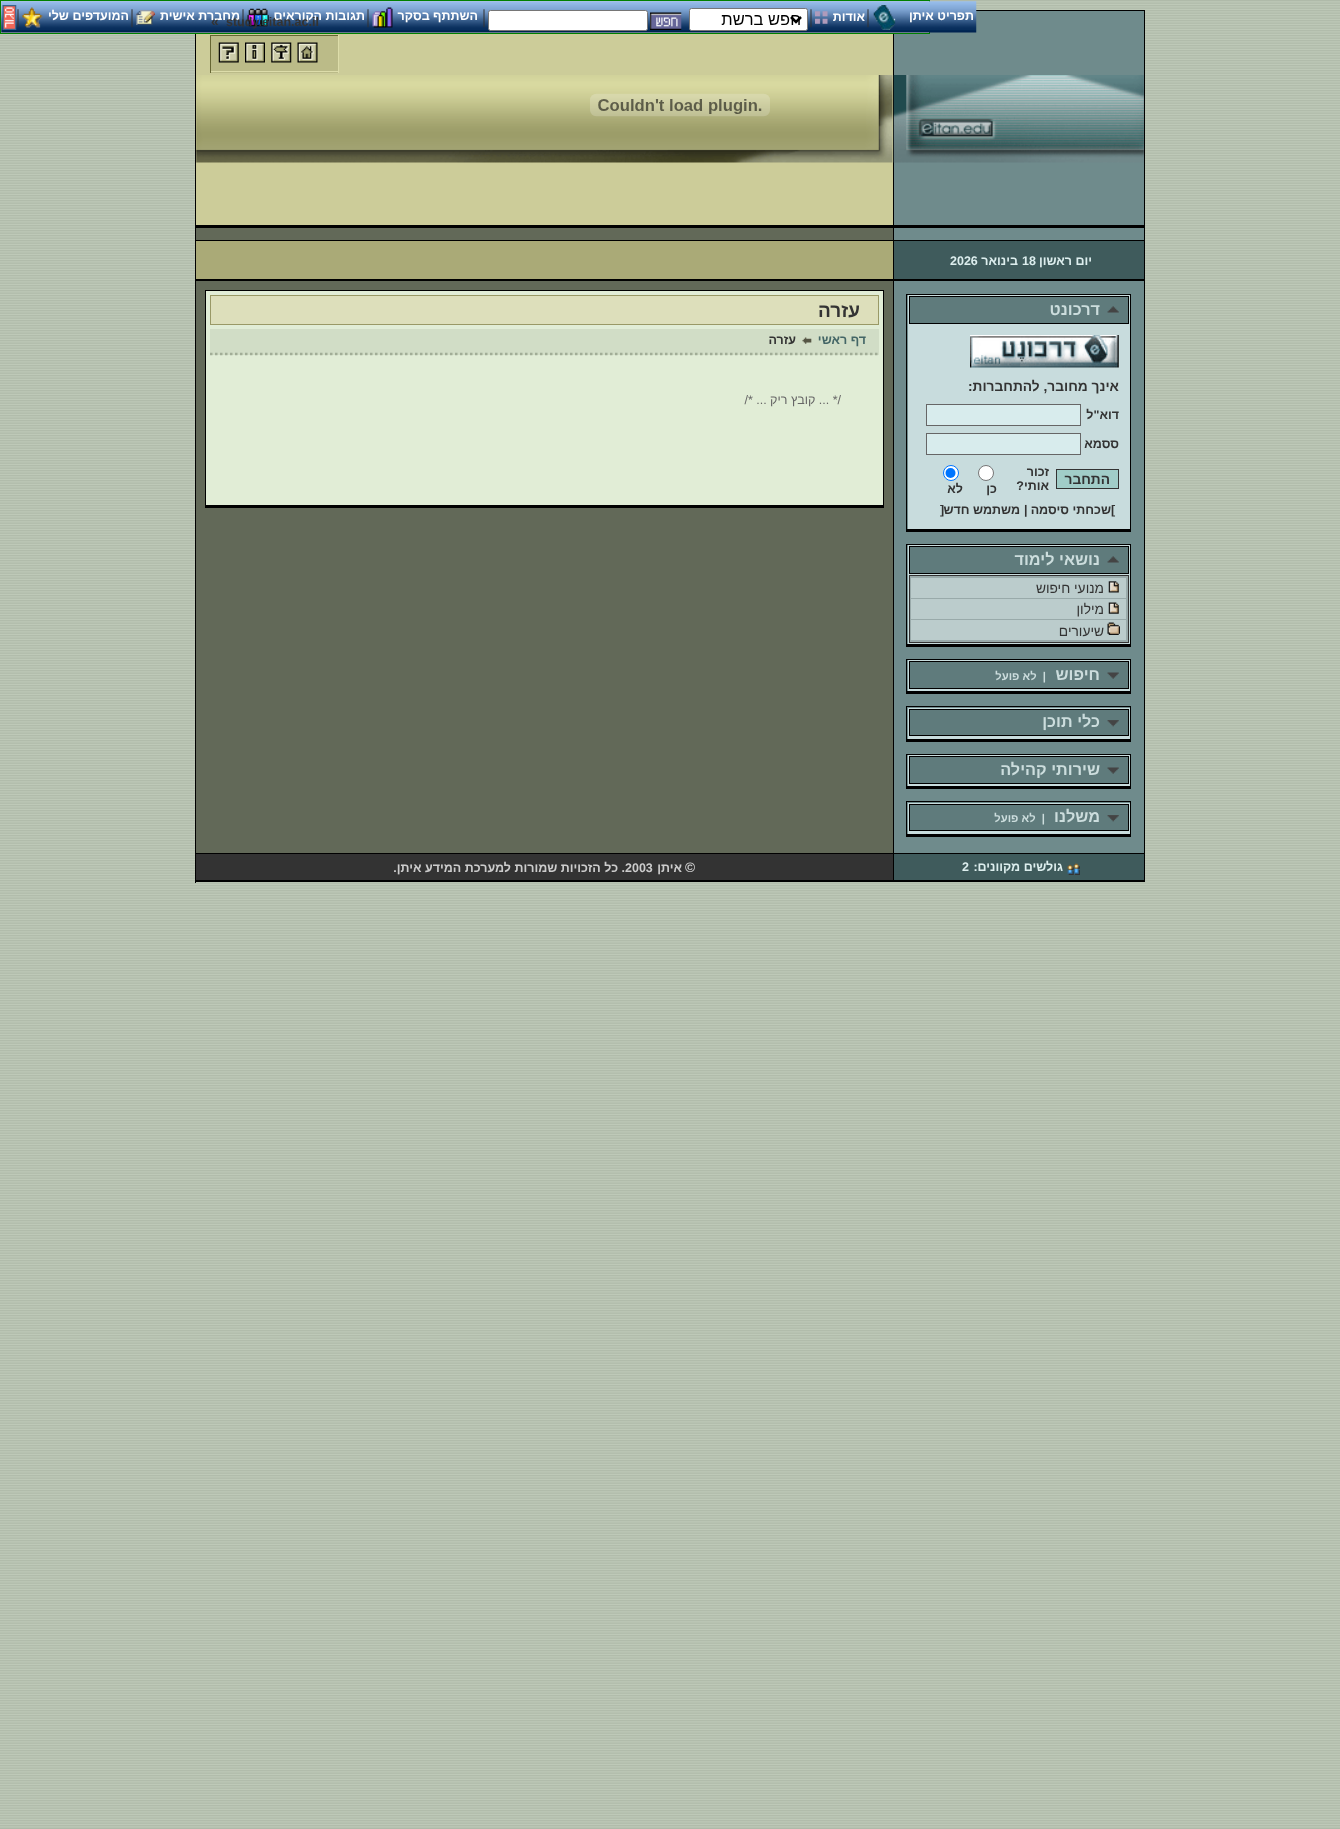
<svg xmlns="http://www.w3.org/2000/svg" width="1340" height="1829">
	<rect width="100%" height="100%" fill="#AFBAA9" />
	<image x="0" y="1" width="1340" height="1827" href="assets/img1.png" />
	<rect x="894" y="11" width="250" height="229" fill="#6F8B8C" />
	<rect x="0.5" y="0.5" width="929" height="33" fill="#CCCCCC" stroke="#008000" />
	<rect x="976" y="10" width="169" height="1" fill="#000000" />
	<image x="1" y="1" width="976" height="32" href="assets/img2.png" />
	<text x="974" y="20" font-family="Liberation Sans" font-size="12.5" font-weight="700" direction="rtl" fill="#FFFFFF">תפריט איתן</text>
	<image x="873" y="5" width="23" height="25" href="assets/img3.png" />
	<text x="866" y="23" font-family="Liberation Serif" font-size="20" fill="#333333">|</text>
	<text x="865" y="21" font-family="Liberation Sans" font-size="12.5" font-weight="700" direction="rtl" fill="#FFFFFF">אודות</text>
	<image x="815" y="11" width="13" height="13" href="assets/img4.png" />
	<text x="809" y="23" font-family="Liberation Serif" font-size="20" fill="#333333">|</text>
	<rect x="689.5" y="8.5" width="118" height="22" rx="2" fill="#FFFFFF" stroke="#767676" />
	<path d="M791 17L796 22L801 17" fill="none" stroke="#000000" stroke-width="2.5" />
	<text x="801" y="25" font-family="Liberation Sans" font-size="16.5" direction="rtl" fill="#000000">חפש ברשת</text>
	<image x="650" y="12" width="32" height="18" href="assets/img5.png" />
	<rect x="488.5" y="10.5" width="159" height="20" rx="2" fill="#FFFFFF" stroke="#767676" />
	<text x="482" y="23" font-family="Liberation Serif" font-size="20" fill="#333333">|</text>
	<text x="478" y="20" font-family="Liberation Sans" font-size="12.5" font-weight="700" direction="rtl" fill="#FFFFFF">השתתף בסקר</text>
	<image x="372" y="7" width="21" height="21" href="assets/img6.png" />
	<text x="366" y="23" font-family="Liberation Serif" font-size="20" fill="#333333">|</text>
	<text x="365" y="20" font-family="Liberation Sans" font-size="12.5" font-weight="700" direction="rtl" fill="#FFFFFF">תגובות הקוראים</text>
	<image x="247" y="8" width="22" height="19" href="assets/img7.png" />
	<text x="241" y="23" font-family="Liberation Serif" font-size="20" fill="#333333">|</text>
	<text x="240" y="20" font-family="Liberation Sans" font-size="12.5" font-weight="700" direction="rtl" fill="#FFFFFF">מחברת אישית</text>
	<image x="136" y="10" width="19" height="15" href="assets/img8.png" />
	<text x="130" y="23" font-family="Liberation Serif" font-size="20" fill="#333333">|</text>
	<text x="129" y="20" font-family="Liberation Sans" font-size="12.5" font-weight="700" direction="rtl" fill="#FFFFFF">המועדפים שלי</text>
	<image x="22" y="7" width="21" height="21" href="assets/img9.png" />
	<text x="16" y="23" font-family="Liberation Serif" font-size="20" fill="#333333">|</text>
	<image x="2" y="5" width="15" height="25" href="assets/img10.png" />
	<rect x="195" y="34" width="1" height="247" fill="#000000" />
	<rect x="1144" y="11" width="1" height="870" fill="#000000" />
	<rect x="894" y="225" width="251" height="3" fill="#000000" />
	<rect x="893" y="34" width="1" height="847" fill="#000000" />
	<image x="893" y="75" width="251" height="88" href="assets/img11.png" />
	<rect x="196" y="34" width="697" height="191" fill="#CCCC99" />
	<image x="196" y="75" width="697" height="88" href="assets/img12.png" />
	<rect x="196" y="225" width="698" height="3" fill="#000000" />
	<text x="226" y="26" font-family="Liberation Sans" font-size="12.5" font-weight="700" fill="#333333">study.eitan.ac.il</text>
	<text x="211" y="26" font-family="Liberation Sans" font-size="13.75" font-weight="700" fill="#333333">«</text>
	<rect x="211" y="36" width="127" height="37" fill="#BBBB88" />
	<rect x="210" y="35" width="129" height="1" fill="#666633" />
	<rect x="338" y="35" width="1" height="38" fill="#DDDDAA" />
	<rect x="210" y="71" width="129" height="1" fill="#DDDDAA" />
	<rect x="210" y="35" width="1" height="38" fill="#666633" />
	<image x="297" y="42" width="21" height="21" href="assets/img13.png" />
	<image x="271" y="42" width="21" height="21" href="assets/img14.png" />
	<image x="245" y="42" width="20" height="21" href="assets/img15.png" />
	<image x="218" y="42" width="21" height="21" href="assets/img16.png" />
	<image x="590" y="93" width="180" height="24" href="assets/img17.png" />
	<rect x="196" y="228" width="697" height="12" fill="#626958" />
	<rect x="196" y="240" width="949" height="1" fill="#000000" />
	<rect x="196" y="241" width="697" height="38" fill="#AAAA77" />
	<rect x="196" y="279" width="949" height="2" fill="#000000" />
	<rect x="894" y="241" width="250" height="38" fill="#3F5B5C" />
	<text x="1092" y="265" font-family="Liberation Sans" font-size="12.5" font-weight="700" direction="rtl" fill="#DDEEEE">יום ראשון</text>
	<text x="1022" y="265" font-family="Liberation Sans" font-size="12.5" font-weight="700" fill="#DDEEEE">18</text>
	<text x="1018" y="265" font-family="Liberation Sans" font-size="12.5" font-weight="700" direction="rtl" fill="#DDEEEE">בינואר</text>
	<text x="950" y="265" font-family="Liberation Sans" font-size="12.5" font-weight="700" fill="#DDEEEE">2026</text>
	<rect x="894" y="281" width="250" height="572" fill="#6F8B8C" />
	<rect x="195" y="881" width="950" height="1" fill="#000000" />
	<rect x="195" y="281" width="1" height="602" fill="#000000" />
	<rect x="908" y="295" width="222" height="234" fill="#C8DCDD" />
	<rect x="906" y="294" width="225" height="1" fill="#000000" />
	<rect x="1130" y="294" width="1" height="237" fill="#000000" />
	<rect x="906" y="529" width="225" height="3" fill="#000000" />
	<rect x="906" y="294" width="1" height="237" fill="#000000" />
	<rect x="909.5" y="296.5" width="219" height="27" fill="#5F7B7C" stroke="#000000" />
	<image x="1107" y="306" width="12" height="7" href="assets/img18.png" />
	<text x="1100" y="315" font-family="Liberation Sans" font-size="16.25" font-weight="700" direction="rtl" fill="#CCDDDD">דרכונט</text>
	<image x="970" y="335" width="149" height="33" href="assets/img19.png" />
	<text x="1119" y="391" font-family="Liberation Sans" font-size="13.75" font-weight="700" direction="rtl" fill="#333333">אינך מחובר, להתחברות:</text>
	<text x="1119" y="419" font-family="Liberation Sans" font-size="12.5" font-weight="700" direction="rtl" fill="#333333">דוא"ל</text>
	<rect x="926.5" y="404.5" width="154" height="21" fill="#D8ECED" stroke="#666666" />
	<text x="1119" y="448" font-family="Liberation Sans" font-size="12.5" font-weight="700" direction="rtl" fill="#333333">ססמא</text>
	<rect x="926.5" y="433.5" width="154" height="21" fill="#D8ECED" stroke="#666666" />
	<rect x="1056.5" y="469.5" width="62" height="19" fill="#A1CDC8" stroke="#333333" />
	<text x="1110" y="484" font-family="Liberation Sans" font-size="13.75" font-weight="700" direction="rtl" fill="#333333">התחבר</text>
	<g font-family="Liberation Sans" font-size="12.5" font-weight="700" direction="rtl" fill="#333333">
		<text x="1049" y="476">זכור</text>
		<text x="1049" y="490">אותי?</text>
	</g>
	<circle cx="986" cy="473" r="7.5" fill="#FFFFFF" stroke="#767676" />
	<text x="997" y="493" font-family="Liberation Sans" font-size="12.5" font-weight="700" direction="rtl" fill="#333333">כן</text>
	<circle cx="951" cy="473" r="7.5" fill="#FFFFFF" stroke="#0075FF" />
	<circle cx="950.5" cy="473" r="5" fill="#0075FF" />
	<text x="963" y="493" font-family="Liberation Sans" font-size="12.5" font-weight="700" direction="rtl" fill="#333333">לא</text>
	<text x="1111" y="514" font-family="Liberation Sans" font-size="12.5" font-weight="700" fill="#333333">[</text>
	<text x="1111" y="514" font-family="Liberation Sans" font-size="12.5" font-weight="700" direction="rtl" fill="#333333">שכחתי סיסמה</text>
	<text x="1024" y="514" font-family="Liberation Sans" font-size="12.5" font-weight="700" fill="#333333">|</text>
	<text x="1020" y="514" font-family="Liberation Sans" font-size="12.5" font-weight="700" direction="rtl" fill="#333333">משתמש חדש</text>
	<text x="940" y="514" font-family="Liberation Sans" font-size="12.5" font-weight="700" fill="#333333">]</text>
	<rect x="908" y="545" width="222" height="99" fill="#C8DCDD" />
	<rect x="906" y="544" width="225" height="1" fill="#000000" />
	<rect x="1130" y="544" width="1" height="102" fill="#000000" />
	<rect x="906" y="644" width="225" height="3" fill="#000000" />
	<rect x="906" y="544" width="1" height="102" fill="#000000" />
	<rect x="909.5" y="546.5" width="219" height="27" fill="#5F7B7C" stroke="#000000" />
	<image x="1107" y="556" width="12" height="7" href="assets/img18.png" />
	<text x="1100" y="565" font-family="Liberation Sans" font-size="16.25" font-weight="700" direction="rtl" fill="#CCDDDD">נושאי לימוד</text>
	<rect x="909.5" y="575.5" width="219" height="67" fill="#99AAAA" stroke="#333333" />
	<rect x="911" y="578" width="215" height="20" fill="#BBCCCC" />
	<image x="1108" y="581" width="11" height="12" href="assets/img20.png" />
	<text x="1104" y="593" font-family="Liberation Sans" font-size="13.75" direction="rtl" fill="#333333">מנועי חיפוש</text>
	<rect x="911" y="599" width="215" height="20" fill="#BBCCCC" />
	<image x="1108" y="602" width="11" height="12" href="assets/img21.png" />
	<text x="1104" y="614" font-family="Liberation Sans" font-size="13.75" direction="rtl" fill="#333333">מילון</text>
	<rect x="911" y="620" width="215" height="20" fill="#BBCCCC" />
	<image x="1107" y="622" width="13" height="13" href="assets/img22.png" />
	<text x="1104" y="636" font-family="Liberation Sans" font-size="13.75" direction="rtl" fill="#333333">שיעורים</text>
	<rect x="908" y="660" width="222" height="31" fill="#C8DCDD" />
	<rect x="906" y="659" width="225" height="1" fill="#000000" />
	<rect x="1130" y="659" width="1" height="35" fill="#000000" />
	<rect x="906" y="691" width="225" height="3" fill="#000000" />
	<rect x="906" y="659" width="1" height="35" fill="#000000" />
	<rect x="909.5" y="661.5" width="219" height="27" fill="#5F7B7C" stroke="#000000" />
	<image x="1107" y="672" width="12" height="7" href="assets/img23.png" />
	<text x="1100" y="680" font-family="Liberation Sans" font-size="16.25" font-weight="700" direction="rtl" fill="#CCDDDD">חיפוש</text>
	<text x="1046" y="680" font-family="Liberation Sans" font-size="11.25" font-weight="700" direction="rtl" fill="#CCDDDD" xml:space="preserve">|  לא פועל</text>
	<rect x="908" y="708" width="222" height="31" fill="#C8DCDD" />
	<rect x="906" y="706" width="225" height="1" fill="#000000" />
	<rect x="1130" y="706" width="1" height="35" fill="#000000" />
	<rect x="906" y="739" width="225" height="3" fill="#000000" />
	<rect x="906" y="706" width="1" height="35" fill="#000000" />
	<rect x="909.5" y="709.5" width="219" height="26" fill="#5F7B7C" stroke="#000000" />
	<image x="1107" y="720" width="12" height="7" href="assets/img24.png" />
	<text x="1100" y="727" font-family="Liberation Sans" font-size="16.25" font-weight="700" direction="rtl" fill="#CCDDDD">כלי תוכן</text>
	<rect x="908" y="755" width="222" height="31" fill="#C8DCDD" />
	<rect x="906" y="754" width="225" height="1" fill="#000000" />
	<rect x="1130" y="754" width="1" height="35" fill="#000000" />
	<rect x="906" y="786" width="225" height="3" fill="#000000" />
	<rect x="906" y="754" width="1" height="35" fill="#000000" />
	<rect x="909.5" y="756.5" width="219" height="27" fill="#5F7B7C" stroke="#000000" />
	<image x="1107" y="767" width="12" height="7" href="assets/img23.png" />
	<text x="1100" y="775" font-family="Liberation Sans" font-size="16.25" font-weight="700" direction="rtl" fill="#CCDDDD">שירותי קהילה</text>
	<rect x="908" y="803" width="222" height="31" fill="#C8DCDD" />
	<rect x="906" y="801" width="225" height="1" fill="#000000" />
	<rect x="1130" y="801" width="1" height="35" fill="#000000" />
	<rect x="906" y="834" width="225" height="3" fill="#000000" />
	<rect x="906" y="801" width="1" height="35" fill="#000000" />
	<rect x="909.5" y="804.5" width="219" height="26" fill="#5F7B7C" stroke="#000000" />
	<image x="1107" y="815" width="12" height="7" href="assets/img24.png" />
	<text x="1100" y="822" font-family="Liberation Sans" font-size="16.25" font-weight="700" direction="rtl" fill="#CCDDDD">משלנו</text>
	<text x="1045" y="822" font-family="Liberation Sans" font-size="11.25" font-weight="700" direction="rtl" fill="#CCDDDD" xml:space="preserve">|  לא פועל</text>
	<rect x="196" y="281" width="697" height="572" fill="#626958" />
	<rect x="196" y="853" width="949" height="1" fill="#000000" />
	<rect x="206" y="291" width="677" height="214" fill="#E1EDD6" />
	<rect x="205" y="290" width="679" height="1" fill="#000000" />
	<rect x="883" y="290" width="1" height="218" fill="#000000" />
	<rect x="205" y="505" width="679" height="3" fill="#000000" />
	<rect x="205" y="290" width="1" height="218" fill="#000000" />
	<rect x="210.5" y="295.5" width="668" height="29" fill="#DDDFBB" stroke="#999966" />
	<text x="860" y="317" font-family="Liberation Sans" font-size="19" font-weight="700" direction="rtl" fill="#333333">עזרה</text>
	<rect x="210" y="329" width="669" height="26" fill="#D1DDC6" />
	<path d="M210 354H879" fill="none" stroke="#A1AD96" stroke-width="2.5" stroke-dasharray="2.5 2.5" />
	<text x="866" y="344" font-family="Liberation Sans" font-size="12.5" font-weight="700" direction="rtl" fill="#446666">דף ראשי</text>
	<image x="802" y="337" width="10" height="7" href="assets/img25.png" />
	<text x="796" y="344" font-family="Liberation Sans" font-size="12.5" font-weight="700" direction="rtl" fill="#333333">עזרה</text>
	<text x="841" y="404" font-family="Liberation Sans" font-size="12.5" direction="rtl" fill="#666666">/* ... קובץ ריק ... */</text>
	<rect x="894" y="854" width="250" height="26" fill="#3F5B5C" />
	<image x="1067" y="863" width="13" height="12" href="assets/img26.png" />
	<text x="1063" y="871" font-family="Liberation Sans" font-size="12.5" font-weight="700" direction="rtl" fill="#DDEEEE">גולשים מקוונים:</text>
	<text x="962" y="871" font-family="Liberation Sans" font-size="12.5" font-weight="700" fill="#DDEEEE">2</text>
	<rect x="196" y="880" width="949" height="1" fill="#000000" />
	<rect x="196" y="854" width="697" height="26" fill="#333333" />
	<text x="685" y="872" font-family="Liberation Sans" font-size="13.75" font-weight="700" fill="#CCCCCC">©</text>
	<text x="682" y="872" font-family="Liberation Sans" font-size="12.5" font-weight="700" direction="rtl" fill="#CCCCCC">איתן</text>
	<text x="625" y="872" font-family="Liberation Sans" font-size="12.5" font-weight="700" fill="#CCCCCC">2003</text>
	<text x="625" y="872" font-family="Liberation Sans" font-size="12.5" font-weight="700" direction="rtl" fill="#CCCCCC">. כל הזכויות שמורות למערכת המידע איתן.</text>
</svg>
